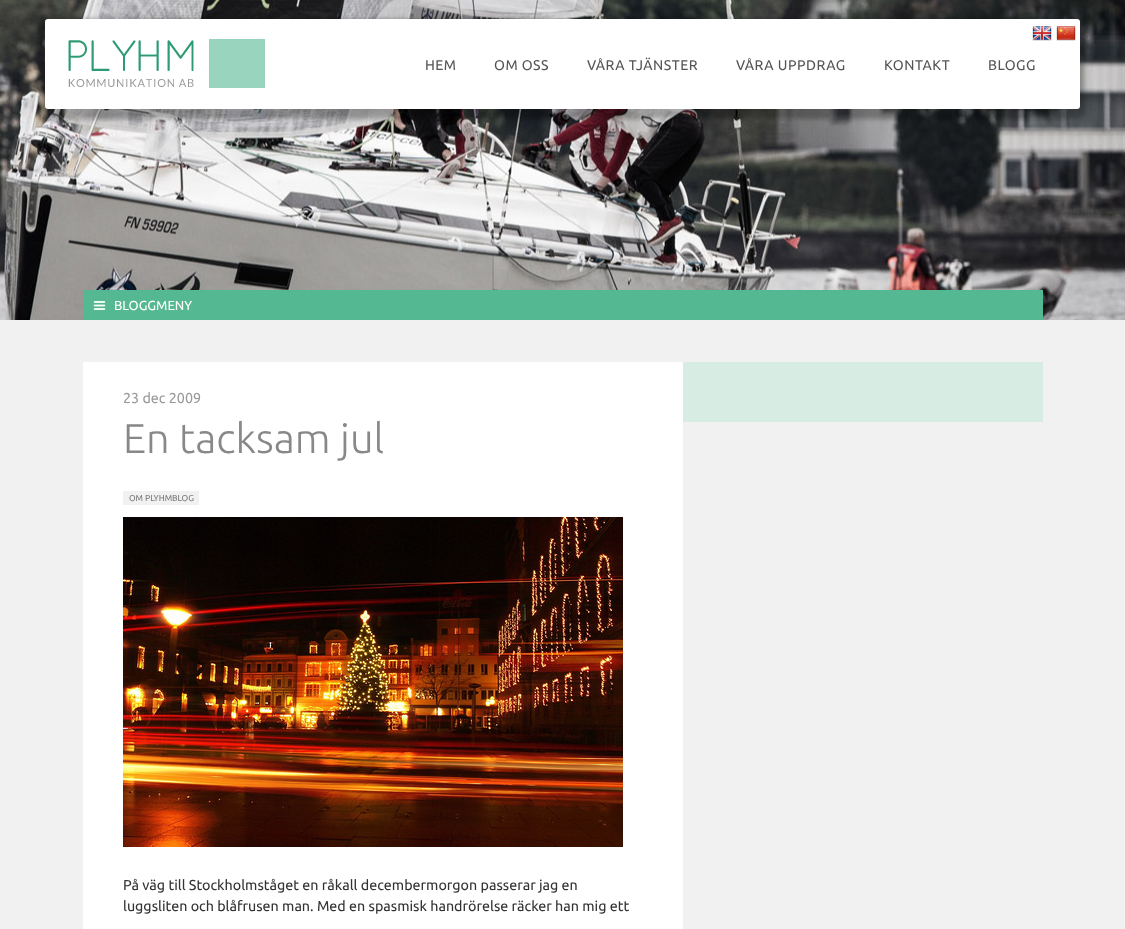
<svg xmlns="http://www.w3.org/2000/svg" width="1125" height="929">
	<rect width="100%" height="100%" fill="#F1F1F1" />
	<image x="0" y="0" width="1125" height="320" href="assets/img4.png" />
	<rect x="40" y="19" width="1045" height="100" rx="8" fill="#000000" fill-opacity="0.3" filter="blur(2.5px)" />
	<rect x="45" y="19" width="1035" height="90" rx="3" fill="#FFFFFF" />
	<image x="1032" y="26" width="20" height="15" href="assets/img1.png" />
	<image x="1056" y="26" width="20" height="15" href="assets/img2.png" />
	<image x="68" y="39" width="197" height="49" href="assets/img3.png" />
	<g font-family="Ubuntu" font-size="14" letter-spacing="0.5" fill="#555555">
		<text x="425" y="70">HEM</text>
		<text x="494" y="70">OM OSS</text>
		<text x="587" y="70">VÅRA TJÄNSTER</text>
		<text x="736" y="70">VÅRA UPPDRAG</text>
		<text x="884" y="70">KONTAKT</text>
		<text x="988" y="70">BLOGG</text>
	</g>
	<rect x="83" y="290" width="960" height="30" fill="#54B892" />
	<image x="93" y="301" width="13" height="9" href="assets/img5.png" />
	<text x="114" y="310" font-family="Ubuntu" font-size="13" fill="#FFFFFF">BLOGGMENY</text>
	<rect x="83" y="362" width="600" height="567" fill="#FFFFFF" />
	<text x="123" y="403" font-family="Ubuntu" font-size="14.3" fill="#999999">23 dec 2009</text>
	<text x="123" y="453" font-family="Ubuntu" font-size="41.5" font-weight="300" fill="#888888">En tacksam jul</text>
	<rect x="123" y="491" width="76" height="14" fill="#F1F1F1" />
	<text x="129" y="501" font-family="Ubuntu" font-size="8.5" fill="#777777">OM PLYHMBLOG</text>
	<image x="123" y="517" width="500" height="330" href="assets/img6.png" />
	<g font-family="Ubuntu" font-size="14.3" fill="#333333">
		<text x="123" y="890">På väg till Stockholmståget en råkall decembermorgon passerar jag en</text>
		<text x="123" y="911">luggsliten och blåfrusen man. Med en spasmisk handrörelse räcker han mig ett</text>
	</g>
	<rect x="683" y="362" width="360" height="60" fill="#D7ECE3" />
</svg>
